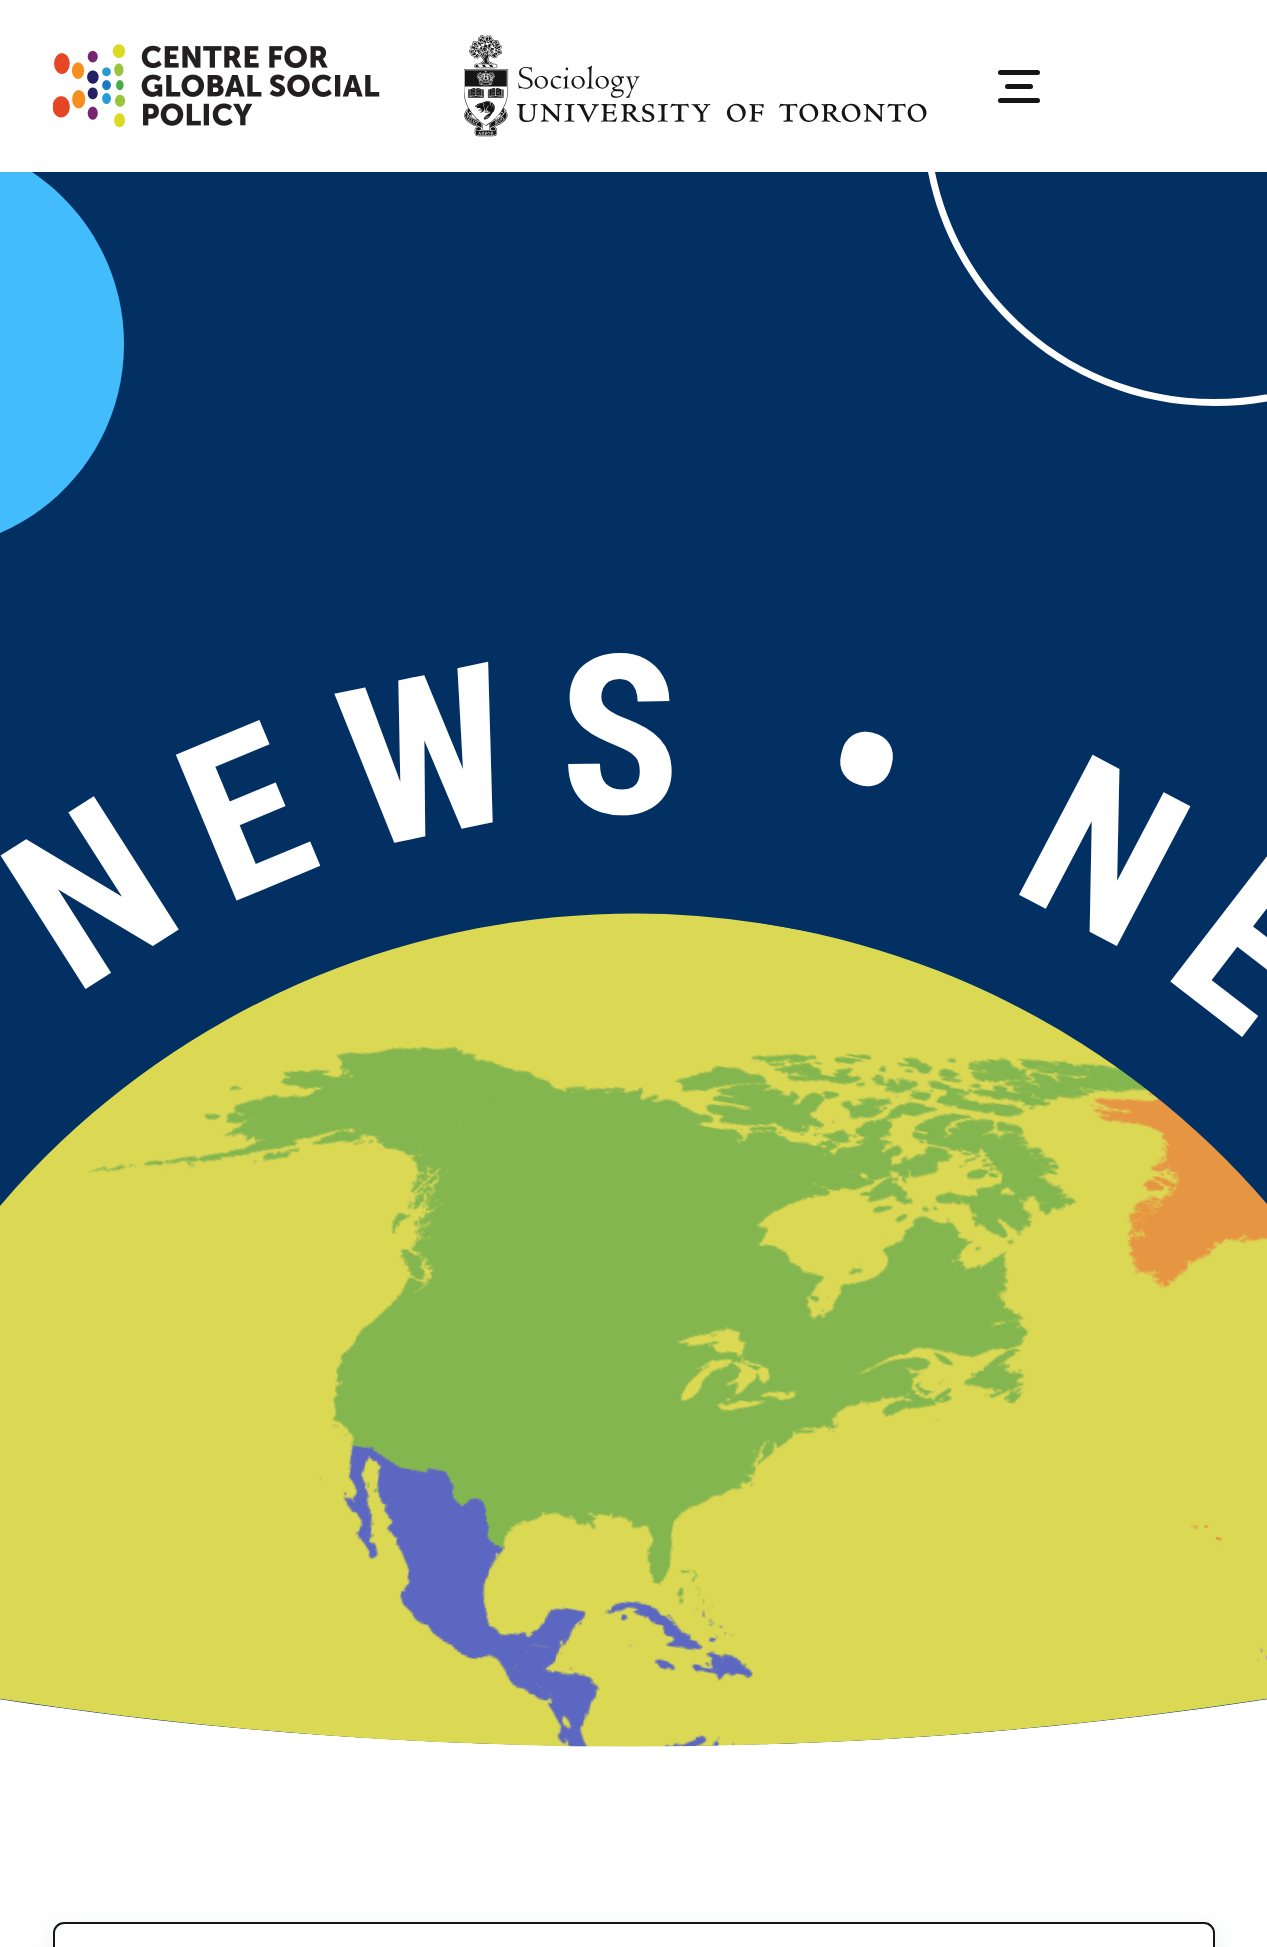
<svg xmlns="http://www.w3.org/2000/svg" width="1267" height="1947">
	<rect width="100%" height="100%" fill="#FFFFFF" />
	<image x="53" y="44" width="327" height="84" href="assets/img1.png" />
	<image x="464" y="35" width="463" height="102" href="assets/img2.png" />
	<rect x="998" y="70" width="42" height="5" rx="2.5" fill="#151515" />
	<rect x="1005" y="84" width="28" height="5" rx="2.5" fill="#151515" />
	<rect x="998" y="98" width="42" height="5" rx="2.5" fill="#151515" />
	<path d="M-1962 172H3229C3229 1041 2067 1746 634 1746C-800 1746-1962 1041-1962 172Z" fill="#033063" />
	<path d="M32 172C87 209 124 272 124 344C124 458 32 550-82 550C-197 550-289 458-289 344C-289 272-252 209-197 172Z" fill="#43BCFC" />
	<path d="M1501 172C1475 305 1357 406 1215 406H1214C1072 406 954 305 928 172H935C961 301 1076 399 1214 399H1215C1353 399 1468 301 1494 172Z" fill="#FFFFFF" />
	<image x="0" y="653" width="1267" height="384" href="assets/img3.png" />
	<path d="M778 926C1155 992 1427 1302 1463 1664C1202 1718 924 1746 634 1746C344 1746 65 1718-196 1664C-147 1183 299 841 778 926Z" fill="#033063" />
	<image x="0" y="913" width="1267" height="834" href="assets/img4.png" />
	<rect x="53" y="1930" width="1162" height="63" rx="11" fill="#033063" fill-opacity="0.1" filter="blur(11.5px)" />
	<rect x="54" y="1923" width="1160" height="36" rx="10" fill="#FFFFFF" stroke="#151515" stroke-width="2" />
</svg>
